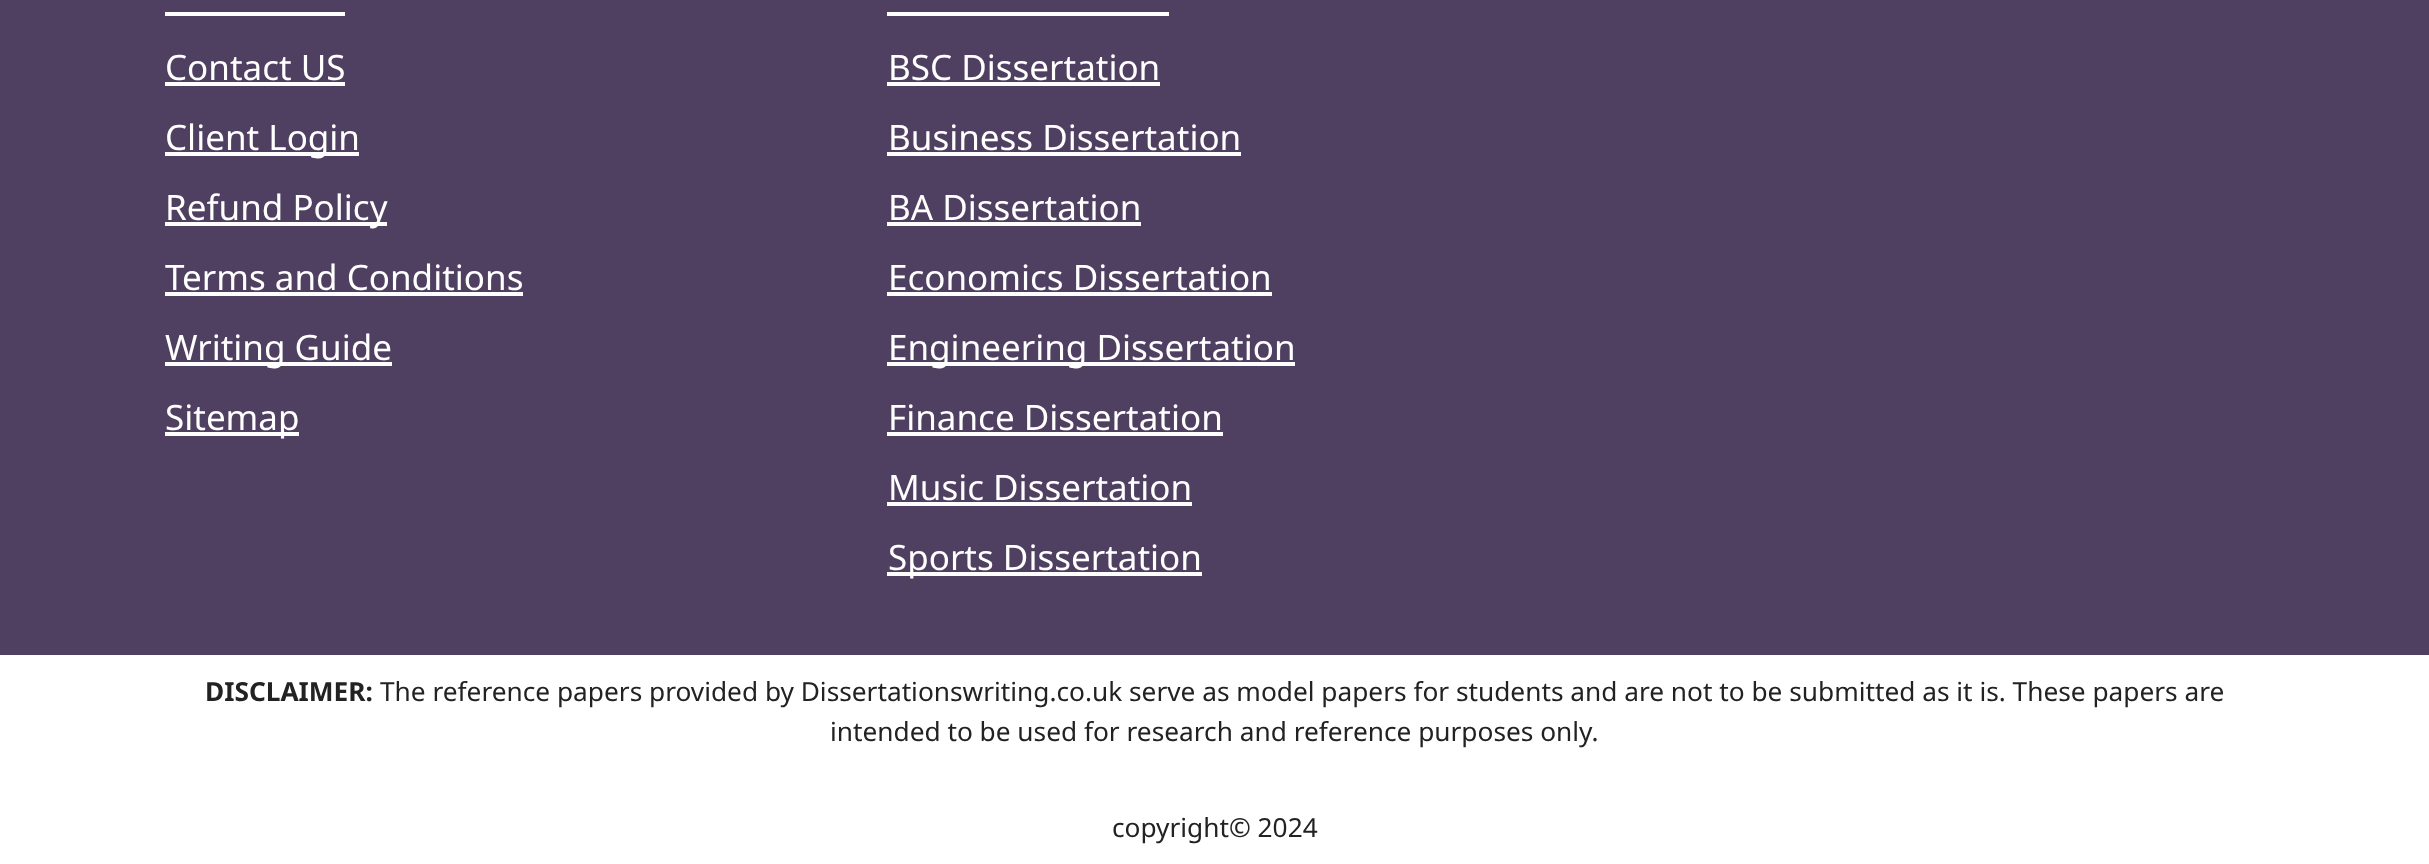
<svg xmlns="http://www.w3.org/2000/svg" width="2429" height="864">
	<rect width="100%" height="100%" fill="#4F4061" />
	<rect x="165" y="12" width="180" height="4" fill="#FFFFFF" />
	<text x="165" y="80" font-family="Noto Sans" font-size="35" fill="#FFFFFF">Contact US</text>
	<rect x="165" y="82" width="180" height="4" fill="#FFFFFF" />
	<rect x="165" y="152" width="194" height="4" fill="#FFFFFF" />
	<text x="165" y="150" font-family="Noto Sans" font-size="35" fill="#FFFFFF">Client Login</text>
	<rect x="165" y="222" width="222" height="4" fill="#FFFFFF" />
	<g font-family="Noto Sans" font-size="35" fill="#FFFFFF">
		<text x="165" y="220">Refund Policy</text>
		<text x="165" y="290">Terms and Conditions</text>
	</g>
	<rect x="165" y="292" width="358" height="4" fill="#FFFFFF" />
	<rect x="165" y="362" width="227" height="4" fill="#FFFFFF" />
	<text x="165" y="360" font-family="Noto Sans" font-size="35" fill="#FFFFFF">Writing Guide</text>
	<rect x="165" y="432" width="134" height="4" fill="#FFFFFF" />
	<text x="165" y="430" font-family="Noto Sans" font-size="35" fill="#FFFFFF">Sitemap</text>
	<rect x="887" y="12" width="282" height="4" fill="#FFFFFF" />
	<text x="888" y="80" font-family="Noto Sans" font-size="35" fill="#FFFFFF">BSC Dissertation</text>
	<rect x="887" y="82" width="273" height="4" fill="#FFFFFF" />
	<text x="888" y="150" font-family="Noto Sans" font-size="35" fill="#FFFFFF">Business Dissertation</text>
	<rect x="887" y="152" width="354" height="4" fill="#FFFFFF" />
	<text x="888" y="220" font-family="Noto Sans" font-size="35" fill="#FFFFFF">BA Dissertation</text>
	<rect x="887" y="222" width="254" height="4" fill="#FFFFFF" />
	<text x="888" y="290" font-family="Noto Sans" font-size="35" fill="#FFFFFF">Economics Dissertation</text>
	<rect x="887" y="292" width="385" height="4" fill="#FFFFFF" />
	<rect x="887" y="362" width="408" height="4" fill="#FFFFFF" />
	<g font-family="Noto Sans" font-size="35" fill="#FFFFFF">
		<text x="888" y="360">Engineering Dissertation</text>
		<text x="888" y="430">Finance Dissertation</text>
	</g>
	<rect x="887" y="432" width="336" height="4" fill="#FFFFFF" />
	<text x="888" y="500" font-family="Noto Sans" font-size="35" fill="#FFFFFF">Music Dissertation</text>
	<rect x="887" y="502" width="305" height="4" fill="#FFFFFF" />
	<rect x="887" y="572" width="315" height="4" fill="#FFFFFF" />
	<text x="888" y="570" font-family="Noto Sans" font-size="35" fill="#FFFFFF">Sports Dissertation</text>
	<rect x="0" y="655" width="2429" height="209" fill="#FFFFFF" />
	<text x="205" y="701" font-family="Noto Sans" font-size="26.25" font-weight="700" fill="#222222">DISCLAIMER:</text>
	<g font-family="Noto Sans" font-size="26.25" fill="#222222">
		<text x="380" y="701">The reference papers provided by Dissertationswriting.co.uk serve as model papers for students and are not to be submitted as it is. These papers are</text>
		<text x="830" y="741">intended to be used for research and reference purposes only.</text>
		<text x="1112" y="837">copyright© 2024</text>
	</g>
</svg>
